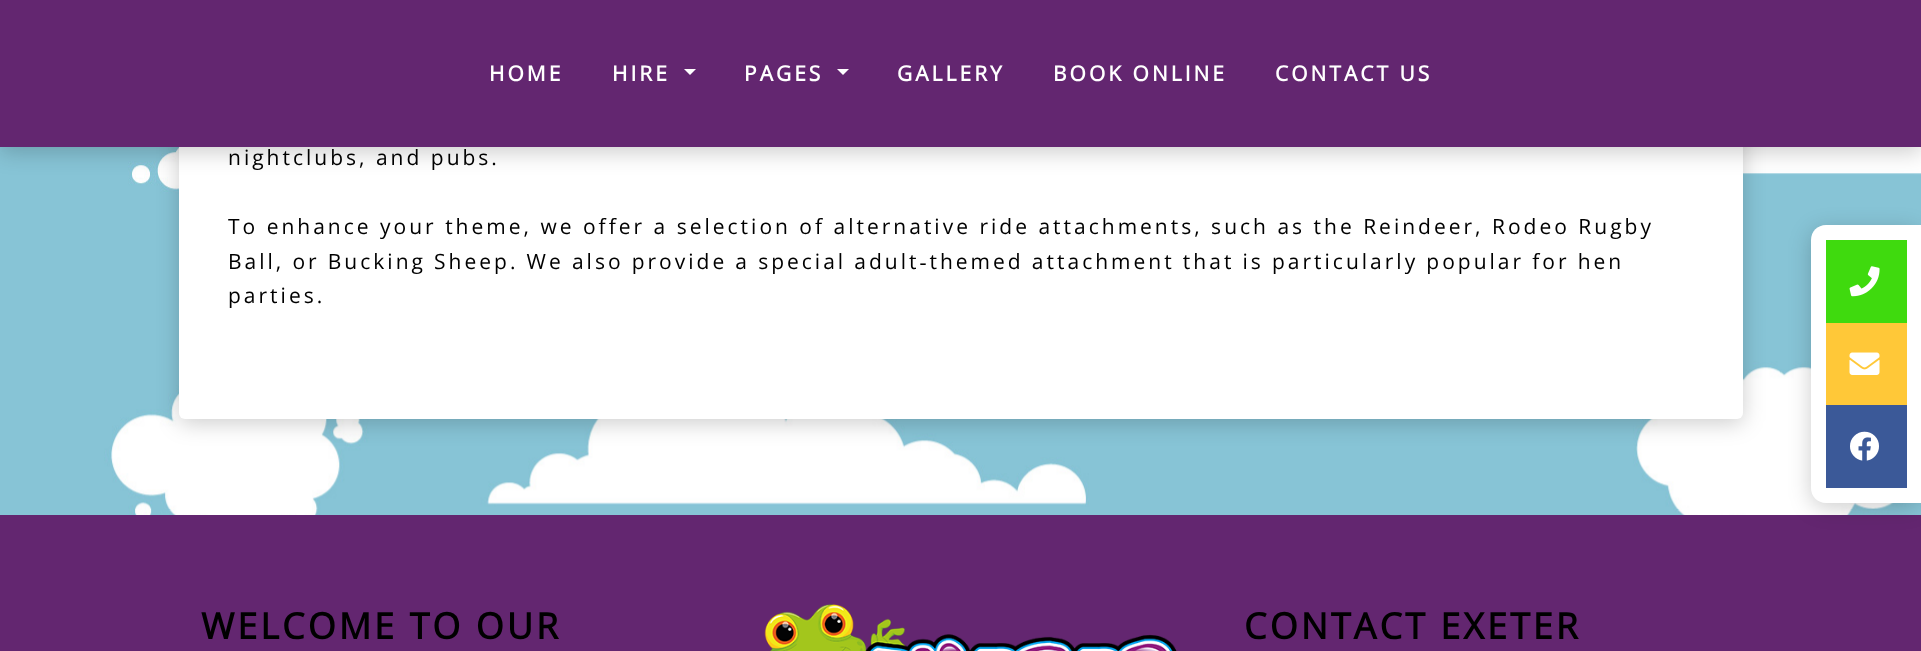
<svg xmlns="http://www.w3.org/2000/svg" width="1921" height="651">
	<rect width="100%" height="100%" fill="#FFFFFF" />
	<image x="0" y="147" width="1921" height="368" href="assets/img1.png" />
	<rect x="179" y="-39" width="1564" height="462" rx="6" fill="#000000" fill-opacity="0.2" filter="blur(11px)" />
	<rect x="179" y="-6" width="1564" height="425" rx="6" fill="#FFFFFF" />
	<rect x="0" y="5" width="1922" height="147" fill="#000000" fill-opacity="0.2" filter="blur(11px)" />
	<rect x="0" y="0" width="1921" height="147" fill="#632670" />
	<g font-family="Open Sans" font-size="21" font-weight="700" letter-spacing="3" fill="#FFFFFF">
		<text x="489" y="81">HOME</text>
		<text x="612" y="81">HIRE</text>
	</g>
	<path d="M684 69H696L690 75Z" fill="#FFFFFF" />
	<text x="744" y="81" font-family="Open Sans" font-size="21" font-weight="700" letter-spacing="3" fill="#FFFFFF">PAGES</text>
	<path d="M837 69H849L843 75Z" fill="#FFFFFF" />
	<g font-family="Open Sans" font-size="21" font-weight="700" letter-spacing="3" fill="#FFFFFF">
		<text x="897" y="81">GALLERY</text>
		<text x="1053" y="81">BOOK ONLINE</text>
		<text x="1275" y="81">CONTACT US</text>
	</g>
	<g font-family="Open Sans" font-size="21" letter-spacing="3" fill="#000000">
		<text x="228" y="165">nightclubs, and pubs.</text>
		<text x="228" y="234">To enhance your theme, we offer a selection of alternative ride attachments, such as the Reindeer, Rodeo Rugby</text>
		<text x="228" y="269" word-spacing="-0.3">Ball, or Bucking Sheep. We also provide a special adult‑themed attachment that is particularly popular for hen</text>
		<text x="228" y="303">parties.</text>
	</g>
	<rect x="0" y="515" width="1921" height="136" fill="#632670" />
	<rect x="1811" y="230" width="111" height="277" rx="15" fill="#000000" fill-opacity="0.2" filter="blur(11px)" />
	<path d="M1826 225H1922V503H1826C1817.5 503 1811 496.5 1811 488V240C1811 231.5 1817.5 225 1826 225Z" fill="#FFFFFF" />
	<rect x="1826" y="240" width="81" height="83" fill="#3FDA0E" />
	<image x="1849" y="266" width="31" height="31" href="assets/img2.png" />
	<rect x="1826" y="323" width="81" height="82" fill="#FFC838" />
	<image x="1849" y="352" width="31" height="23" href="assets/img3.png" />
	<rect x="1826" y="405" width="81" height="83" fill="#3B5998" />
	<image x="1850" y="431" width="29" height="30" href="assets/img4.png" />
	<text x="201" y="639" font-family="Open Sans" font-size="36" font-weight="700" letter-spacing="3" fill="#000000">WELCOME TO OUR</text>
	<image x="764" y="604" width="413" height="47" href="assets/img5.png" />
	<text x="1244" y="639" font-family="Open Sans" font-size="36" font-weight="700" letter-spacing="3" fill="#000000">CONTACT EXETER</text>
</svg>
